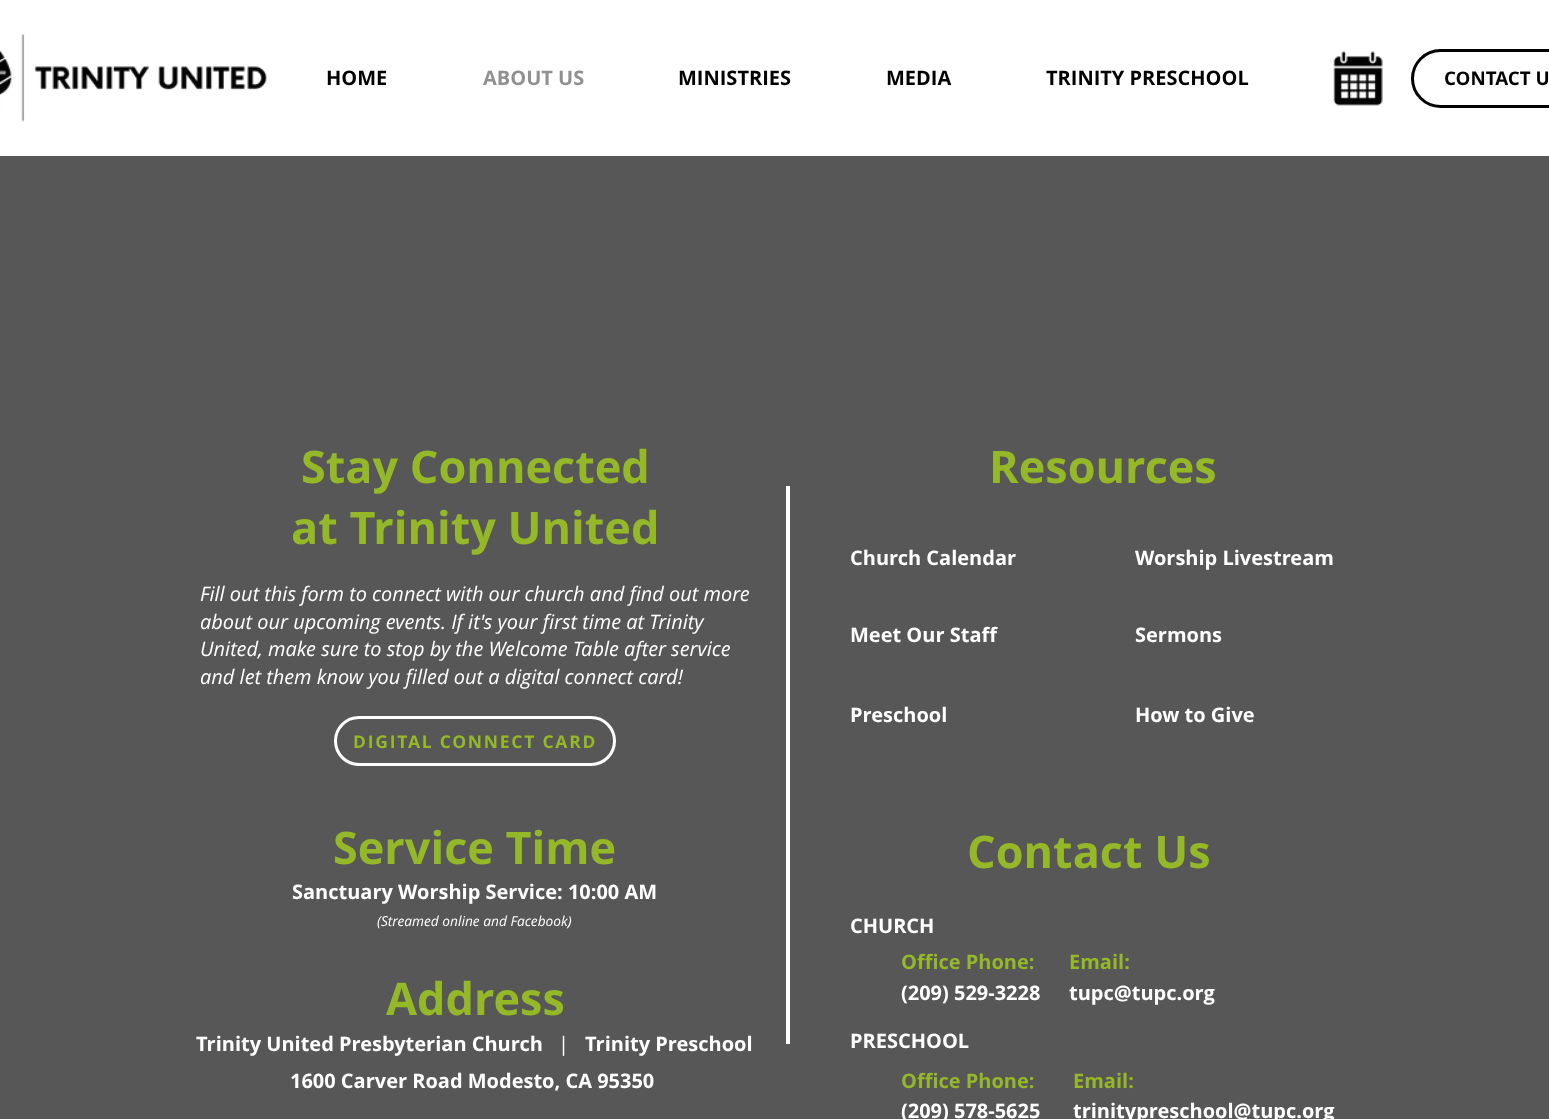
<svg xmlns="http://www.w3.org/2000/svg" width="1549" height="1119">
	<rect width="100%" height="100%" fill="#FFFFFF" />
	<image x="0" y="34" width="267" height="88" href="assets/img1.png" />
	<text x="326" y="85" font-family="Open Sans" font-size="20" font-weight="700" fill="#000000">HOME</text>
	<text x="483" y="85" font-family="Open Sans" font-size="20" font-weight="700" fill="#909090">ABOUT US</text>
	<g font-family="Open Sans" font-size="20" font-weight="700" fill="#000000">
		<text x="678" y="85">MINISTRIES</text>
		<text x="886" y="85">MEDIA</text>
		<text x="1046" y="85">TRINITY PRESCHOOL</text>
	</g>
	<image x="1333" y="51" width="50" height="55" href="assets/img2.png" />
	<rect x="1412.5" y="50.5" width="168" height="56" rx="28" fill="none" stroke="#000000" stroke-width="3" />
	<text x="1444" y="85" font-family="Open Sans" font-size="18.75" font-weight="700" fill="#000000">CONTACT U</text>
	<rect x="0" y="156" width="1549" height="963" fill="#000000" fill-opacity="0.66" />
	<g font-family="Open Sans" font-size="45" font-weight="700" fill="#94B827">
		<text x="301" y="483">Stay Connected</text>
		<text x="291" y="544">at Trinity United</text>
	</g>
	<g font-family="Open Sans" font-size="20" font-style="italic" fill="#FFFFFF">
		<text x="200" y="601">Fill out this form to connect with our church and find out more</text>
		<text x="200" y="629">about our upcoming events. If it's your first time at Trinity</text>
		<text x="200" y="656">United, make sure to stop by the Welcome Table after service</text>
		<text x="200" y="684">and let them know you filled out a digital connect card!</text>
	</g>
	<rect x="335.5" y="717.5" width="279" height="47" rx="23.5" fill="none" stroke="#FFFFFF" stroke-width="3" />
	<text x="353" y="748" font-family="Open Sans" font-size="17.5" font-weight="700" letter-spacing="1.75" fill="#94B827">DIGITAL CONNECT CARD</text>
	<text x="989" y="483" font-family="Open Sans" font-size="45" font-weight="700" fill="#94B827">Resources</text>
	<rect x="786" y="486" width="4" height="558" fill="#FFFFFF" />
	<g font-family="Open Sans" font-size="20" font-weight="700" fill="#FFFFFF">
		<text x="850" y="565">Church Calendar</text>
		<text x="1135" y="565">Worship Livestream</text>
		<text x="850" y="642">Meet Our Staff</text>
		<text x="1135" y="642">Sermons</text>
		<text x="850" y="722">Preschool</text>
		<text x="1135" y="722">How to Give</text>
	</g>
	<text x="333" y="864" font-family="Open Sans" font-size="45" font-weight="700" fill="#94B827">Service Time</text>
	<text x="292" y="899" font-family="Open Sans" font-size="20" font-weight="700" fill="#FFFFFF">Sanctuary Worship Service: 10:00 AM</text>
	<text x="377" y="926" font-family="Open Sans" font-size="13.75" font-style="italic" fill="#FFFFFF">(Streamed online and Facebook)</text>
	<text x="967" y="868" font-family="Open Sans" font-size="45" font-weight="700" fill="#94B827">Contact Us</text>
	<text x="850" y="933" font-family="Open Sans" font-size="20" font-weight="700" fill="#FFFFFF">CHURCH</text>
	<g font-family="Open Sans" font-size="20" font-weight="700" fill="#94B827">
		<text x="901" y="969">Office Phone:</text>
		<text x="1069" y="969">Email:</text>
	</g>
	<g font-family="Open Sans" font-size="20" font-weight="700" fill="#FFFFFF">
		<text x="901" y="1000">(209) 529-3228</text>
		<text x="1069" y="1000">tupc@tupc.org</text>
		<text x="850" y="1048">PRESCHOOL</text>
	</g>
	<g font-family="Open Sans" font-size="20" font-weight="700" fill="#94B827">
		<text x="901" y="1088">Office Phone:</text>
		<text x="1073" y="1088">Email:</text>
	</g>
	<g font-family="Open Sans" font-size="20" font-weight="700" fill="#FFFFFF">
		<text x="901" y="1118">(209) 578-5625</text>
		<text x="1073" y="1118">trinitypreschool@tupc.org</text>
	</g>
	<text x="386" y="1015" font-family="Open Sans" font-size="45" font-weight="700" fill="#94B827">Address</text>
	<text x="196" y="1051" font-family="Open Sans" font-size="20" font-weight="700" fill="#FFFFFF">Trinity United Presbyterian Church</text>
	<text x="558" y="1051" font-family="Open Sans" font-size="20" fill="#FFFFFF">|</text>
	<g font-family="Open Sans" font-size="20" font-weight="700" fill="#FFFFFF">
		<text x="585" y="1051">Trinity Preschool</text>
		<text x="290" y="1088">1600 Carver Road Modesto, CA 95350</text>
	</g>
</svg>
